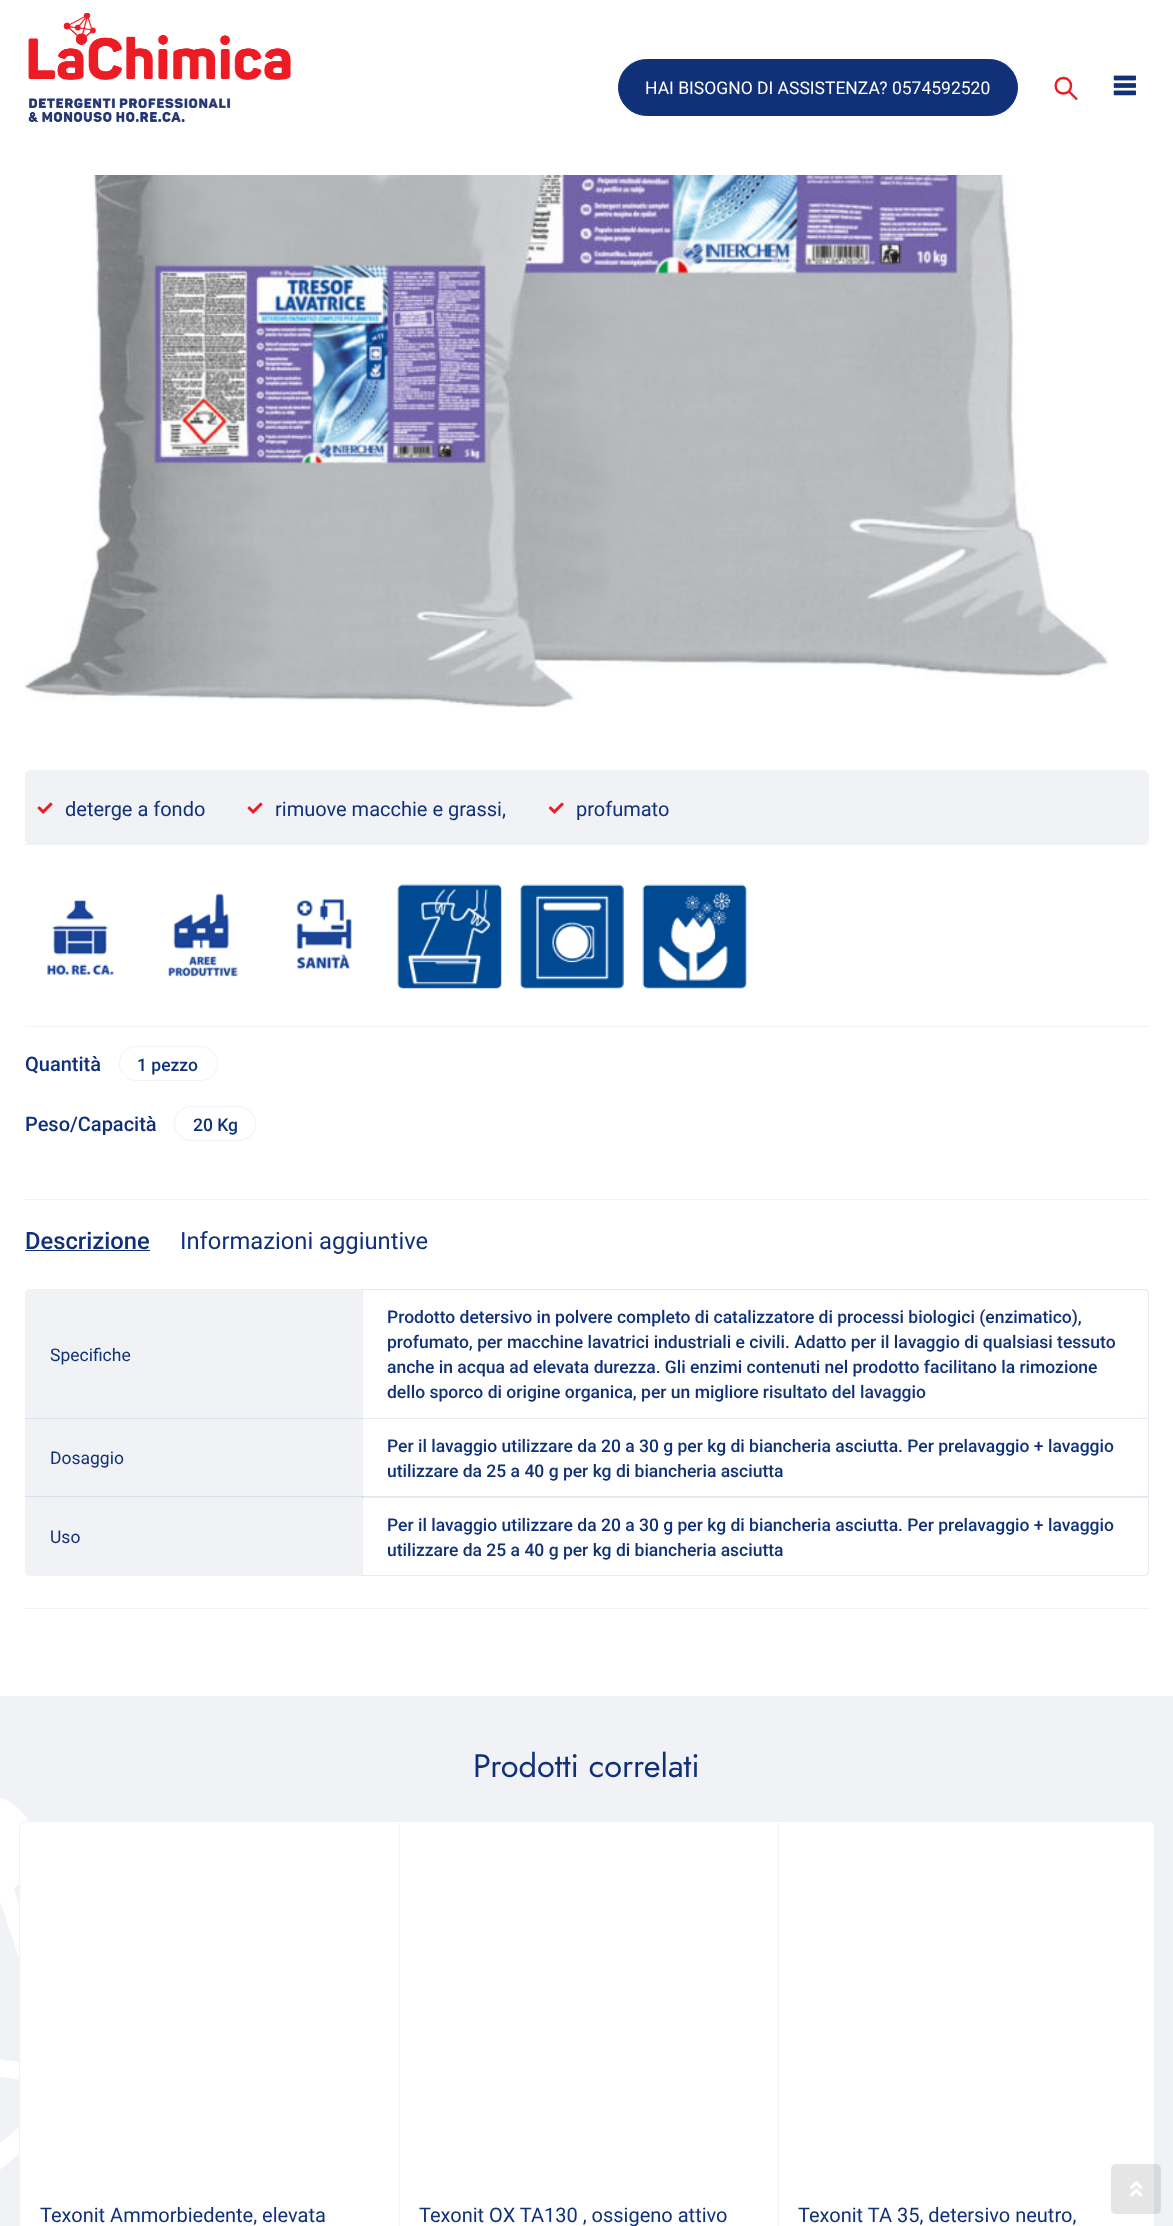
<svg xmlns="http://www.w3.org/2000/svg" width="1173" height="2226">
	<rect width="100%" height="100%" fill="#FFFFFF" />
	<image x="28" y="13" width="263" height="109" href="assets/img1.png" />
	<rect x="618.5" y="59.5" width="399" height="56" rx="28" fill="#103178" stroke="#103178" />
	<text x="645" y="94" font-family="Roboto" font-size="17.5" fill="#FFFFFF">HAI BISOGNO DI ASSISTENZA? 0574592520</text>
	<path d="M1063.5 93.5C1073.5 93.5 1073.5 78 1063.5 78C1053 78 1053 93.5 1063.5 93.5ZM1077 99.5L1068.5 91" fill="none" stroke="#ED1C24" stroke-width="2.4" />
	<image x="1113" y="75" width="23" height="21" href="assets/img2.png" />
	<image x="25" y="175" width="1083" height="532" href="assets/img3.png" />
	<path d="M30 771H1144C1147 771 1149 773 1149 775V839C1149 842 1147 844 1144 844H30C27 844 25 842 25 839V775C25 773 27 771 30 771Z" fill="#F0F2F5" />
	<rect x="28" y="770" width="1118" height="1" fill="#F0F2F5" />
	<image x="37" y="802" width="16" height="12" href="assets/img4.png" />
	<text x="65" y="816" font-family="Roboto" font-size="20" fill="#103178">deterge a fondo</text>
	<image x="247" y="802" width="16" height="12" href="assets/img4.png" />
	<text x="275" y="816" font-family="Roboto" font-size="20" fill="#103178">rimuove macchie e grassi,</text>
	<image x="548" y="802" width="16" height="12" href="assets/img5.png" />
	<text x="576" y="816" font-family="Roboto" font-size="20" fill="#103178">profumato</text>
	<rect x="25" y="844" width="1124" height="1" fill="#F0F2F5" />
	<image x="47" y="899" width="67" height="77" href="assets/img6.png" />
	<image x="168" y="893" width="70" height="84" href="assets/img7.png" />
	<image x="296" y="898" width="56" height="72" href="assets/img8.png" />
	<image x="397" y="884" width="105" height="105" href="assets/img9.png" />
	<image x="520" y="884" width="104" height="105" href="assets/img10.png" />
	<image x="642" y="884" width="105" height="105" href="assets/img11.png" />
	<rect x="25" y="1026" width="1124" height="1" fill="#F0F2F5" />
	<text x="25" y="1071" font-family="Roboto" font-size="20" font-weight="500" fill="#103178">Quantità</text>
	<rect x="119.5" y="1046.5" width="98" height="34" rx="17" fill="none" stroke="#F0F2F5" />
	<text x="137" y="1071" font-family="Roboto" font-size="17.5" font-weight="500" fill="#103178">1 pezzo</text>
	<text x="25" y="1131" font-family="Roboto" font-size="20" font-weight="500" fill="#103178">Peso/Capacità</text>
	<rect x="174.5" y="1106.5" width="81" height="34" rx="17" fill="none" stroke="#F0F2F5" />
	<text x="193" y="1131" font-family="Roboto" font-size="17.5" font-weight="500" fill="#103178">20 Kg</text>
	<rect x="25" y="1199" width="1124" height="1" fill="#F0F2F5" />
	<text x="25" y="1249" font-family="Roboto" font-size="23.75" font-weight="500" fill="#103178">Descrizione</text>
	<rect x="25" y="1250" width="125" height="1" fill="#103178" />
	<text x="180" y="1249" font-family="Roboto" font-size="23.75" fill="#103178">Informazioni aggiuntive</text>
	<path d="M30 1289H363V1419H25V1294C25 1291 27 1289 30 1289Z" fill="#F0F2F5" />
	<rect x="25" y="1418" width="337" height="1" fill="#DADFE9" />
	<text x="50" y="1361" font-family="Roboto" font-size="17.5" fill="#103178">Specifiche</text>
	<path d="M362 1289H1144C1147 1289 1149 1291 1149 1294V1419H362ZM362 1290H1144C1146 1290 1148 1292 1148 1294V1418H362Z" fill="#103178" fill-opacity="0.1" fill-rule="evenodd" />
	<g font-family="Roboto" font-size="17.5" font-weight="500" fill="#103178">
		<text x="387" y="1323">Prodotto detersivo in polvere completo di catalizzatore di processi biologici (enzimatico),</text>
		<text x="387" y="1348">profumato, per macchine lavatrici industriali e civili. Adatto per il lavaggio di qualsiasi tessuto</text>
		<text x="387" y="1373">anche in acqua ad elevata durezza. Gli enzimi contenuti nel prodotto facilitano la rimozione</text>
		<text x="387" y="1398">dello sporco di origine organica, per un migliore risultato del lavaggio</text>
	</g>
	<rect x="25" y="1419" width="338" height="79" fill="#F0F2F5" />
	<rect x="25" y="1496" width="338" height="1" fill="#DADFE9" />
	<text x="50" y="1464" font-family="Roboto" font-size="17.5" fill="#103178">Dosaggio</text>
	<path d="M1149 1419V1498L1148 1496V1419Z" fill="#E7EAF2" />
	<path d="M1149 1498H362V1496H1148Z" fill="#103178" fill-opacity="0.1" />
	<g font-family="Roboto" font-size="17.5" font-weight="500" fill="#103178">
		<text x="387" y="1452">Per il lavaggio utilizzare da 20 a 30 g per kg di biancheria asciutta. Per prelavaggio + lavaggio</text>
		<text x="387" y="1477">utilizzare da 25 a 40 g per kg di biancheria asciutta</text>
	</g>
	<path d="M25 1498H363V1576H30C27 1576 25 1574 25 1571Z" fill="#F0F2F5" />
	<text x="50" y="1543" font-family="Roboto" font-size="17.5" fill="#103178">Uso</text>
	<path d="M362 1498H1149V1571C1149 1574 1147 1576 1144 1576H362ZM362 1498H1148V1571C1148 1573 1146 1575 1144 1575H362Z" fill="#103178" fill-opacity="0.1" fill-rule="evenodd" />
	<g font-family="Roboto" font-size="17.5" font-weight="500" fill="#103178">
		<text x="387" y="1531">Per il lavaggio utilizzare da 20 a 30 g per kg di biancheria asciutta. Per prelavaggio + lavaggio</text>
		<text x="387" y="1556">utilizzare da 25 a 40 g per kg di biancheria asciutta</text>
	</g>
	<rect x="25" y="1608" width="1124" height="1" fill="#F0F2F5" />
	<rect x="0" y="1696" width="1173" height="530" fill="#F0F2F5" />
	<image x="0" y="1798" width="29" height="372" href="assets/img12.png" />
	<text x="473" y="1777" font-family="Jost" font-size="32.5" fill="#103178">Prodotti correlati</text>
	<rect x="19.5" y="1821.5" width="1135" height="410" rx="4.5" fill="#FFFFFF" stroke="#F0F2F5" />
	<text x="40" y="2222" font-family="Roboto" font-size="20" fill="#103178">Texonit Ammorbiedente, elevata</text>
	<rect x="399" y="1823" width="1" height="403" fill="#F0F2F5" />
	<text x="419" y="2222" font-family="Roboto" font-size="20" fill="#103178">Texonit OX TA130 , ossigeno attivo</text>
	<rect x="778" y="1823" width="1" height="403" fill="#F0F2F5" />
	<text x="798" y="2222" font-family="Roboto" font-size="20" fill="#103178">Texonit TA 35, detersivo neutro,</text>
	<rect x="1111" y="2164" width="50" height="50" rx="5" fill="#000000" fill-opacity="0.1" />
	<image x="1130" y="2181" width="13" height="16" href="assets/img13.png" />
</svg>
